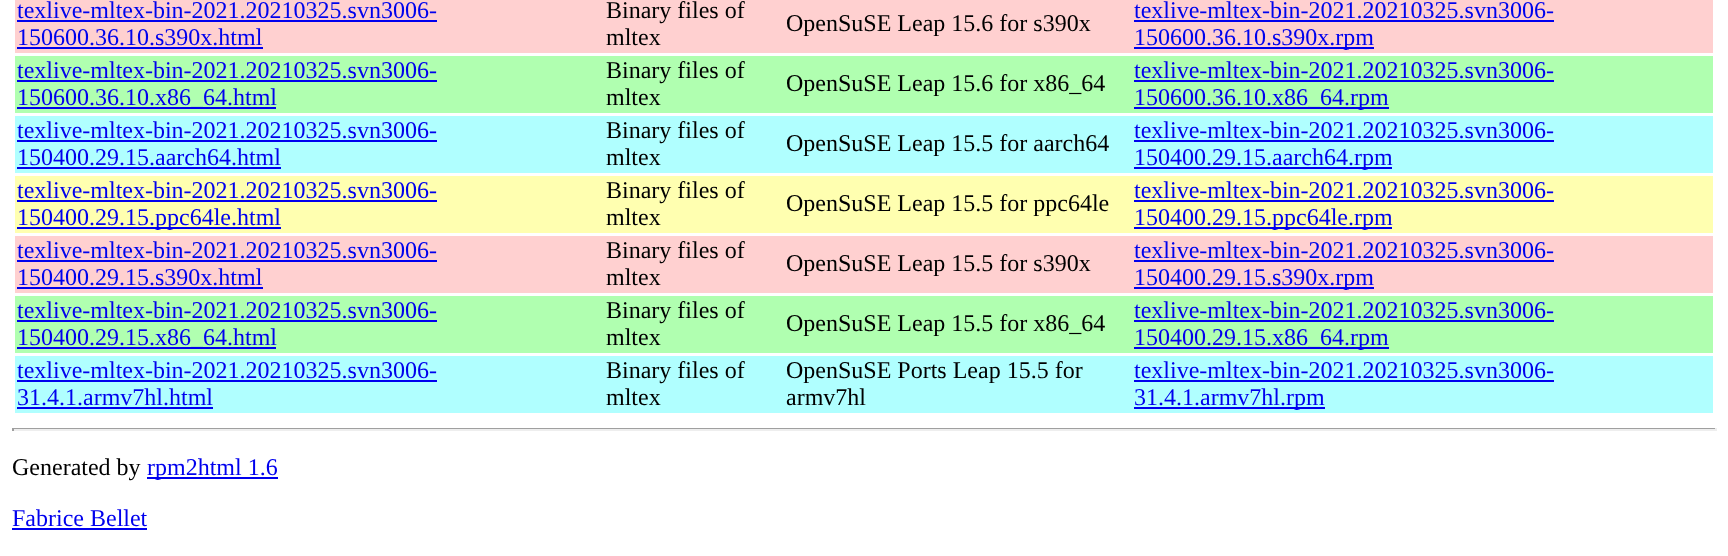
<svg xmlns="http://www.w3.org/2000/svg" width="1728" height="556">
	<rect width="100%" height="100%" fill="#FFFFFF" />
	<rect x="15" y="0" width="1698" height="53" fill="#FFD0D0" />
	<text x="17" y="18" font-family="Liberation Serif" font-size="24" fill="#0000EE">texlive-mltex-bin-2021.20210325.svn3006-</text>
	<rect x="17" y="20" width="420" height="2" fill="#0000EE" />
	<text x="17" y="45" font-family="Liberation Serif" font-size="24" fill="#0000EE">150600.36.10.s390x.html</text>
	<rect x="17" y="47" width="246" height="2" fill="#0000EE" />
	<g font-family="Liberation Serif" font-size="24" fill="#000000">
		<text x="606" y="18">Binary files of</text>
		<text x="606" y="45">mltex</text>
		<text x="786" y="31">OpenSuSE Leap 15.6 for s390x</text>
	</g>
	<text x="1134" y="18" font-family="Liberation Serif" font-size="24" fill="#0000EE">texlive-mltex-bin-2021.20210325.svn3006-</text>
	<rect x="1134" y="20" width="420" height="2" fill="#0000EE" />
	<rect x="1134" y="47" width="240" height="2" fill="#0000EE" />
	<text x="1134" y="45" font-family="Liberation Serif" font-size="24" fill="#0000EE">150600.36.10.s390x.rpm</text>
	<rect x="15" y="56" width="1698" height="57" fill="#B0FFB0" />
	<text x="17" y="78" font-family="Liberation Serif" font-size="24" fill="#0000EE">texlive-mltex-bin-2021.20210325.svn3006-</text>
	<rect x="17" y="80" width="420" height="2" fill="#0000EE" />
	<rect x="17" y="107" width="259" height="2" fill="#0000EE" />
	<text x="17" y="105" font-family="Liberation Serif" font-size="24" fill="#0000EE">150600.36.10.x86_64.html</text>
	<g font-family="Liberation Serif" font-size="24" fill="#000000">
		<text x="606" y="78">Binary files of</text>
		<text x="606" y="105">mltex</text>
		<text x="786" y="91">OpenSuSE Leap 15.6 for x86_64</text>
	</g>
	<text x="1134" y="78" font-family="Liberation Serif" font-size="24" fill="#0000EE">texlive-mltex-bin-2021.20210325.svn3006-</text>
	<rect x="1134" y="80" width="420" height="2" fill="#0000EE" />
	<rect x="1134" y="107" width="255" height="2" fill="#0000EE" />
	<text x="1134" y="105" font-family="Liberation Serif" font-size="24" fill="#0000EE">150600.36.10.x86_64.rpm</text>
	<rect x="15" y="116" width="1698" height="57" fill="#B0FFFF" />
	<text x="17" y="138" font-family="Liberation Serif" font-size="24" fill="#0000EE">texlive-mltex-bin-2021.20210325.svn3006-</text>
	<rect x="17" y="140" width="420" height="2" fill="#0000EE" />
	<text x="17" y="165" font-family="Liberation Serif" font-size="24" fill="#0000EE">150400.29.15.aarch64.html</text>
	<rect x="17" y="167" width="264" height="2" fill="#0000EE" />
	<g font-family="Liberation Serif" font-size="24" fill="#000000">
		<text x="606" y="138">Binary files of</text>
		<text x="606" y="165">mltex</text>
		<text x="786" y="151">OpenSuSE Leap 15.5 for aarch64</text>
	</g>
	<text x="1134" y="138" font-family="Liberation Serif" font-size="24" fill="#0000EE">texlive-mltex-bin-2021.20210325.svn3006-</text>
	<rect x="1134" y="140" width="420" height="2" fill="#0000EE" />
	<rect x="1134" y="167" width="258" height="2" fill="#0000EE" />
	<text x="1134" y="165" font-family="Liberation Serif" font-size="24" fill="#0000EE">150400.29.15.aarch64.rpm</text>
	<rect x="15" y="176" width="1698" height="57" fill="#FFFFB0" />
	<text x="17" y="198" font-family="Liberation Serif" font-size="24" fill="#0000EE">texlive-mltex-bin-2021.20210325.svn3006-</text>
	<rect x="17" y="200" width="420" height="2" fill="#0000EE" />
	<rect x="17" y="227" width="264" height="2" fill="#0000EE" />
	<text x="17" y="225" font-family="Liberation Serif" font-size="24" fill="#0000EE">150400.29.15.ppc64le.html</text>
	<g font-family="Liberation Serif" font-size="24" fill="#000000">
		<text x="606" y="198">Binary files of</text>
		<text x="606" y="225">mltex</text>
		<text x="786" y="211">OpenSuSE Leap 15.5 for ppc64le</text>
	</g>
	<text x="1134" y="198" font-family="Liberation Serif" font-size="24" fill="#0000EE">texlive-mltex-bin-2021.20210325.svn3006-</text>
	<rect x="1134" y="200" width="420" height="2" fill="#0000EE" />
	<rect x="1134" y="227" width="258" height="2" fill="#0000EE" />
	<text x="1134" y="225" font-family="Liberation Serif" font-size="24" fill="#0000EE">150400.29.15.ppc64le.rpm</text>
	<rect x="15" y="236" width="1698" height="57" fill="#FFD0D0" />
	<text x="17" y="258" font-family="Liberation Serif" font-size="24" fill="#0000EE">texlive-mltex-bin-2021.20210325.svn3006-</text>
	<rect x="17" y="260" width="420" height="2" fill="#0000EE" />
	<text x="17" y="285" font-family="Liberation Serif" font-size="24" fill="#0000EE">150400.29.15.s390x.html</text>
	<rect x="17" y="287" width="246" height="2" fill="#0000EE" />
	<g font-family="Liberation Serif" font-size="24" fill="#000000">
		<text x="606" y="258">Binary files of</text>
		<text x="606" y="285">mltex</text>
		<text x="786" y="271">OpenSuSE Leap 15.5 for s390x</text>
	</g>
	<text x="1134" y="258" font-family="Liberation Serif" font-size="24" fill="#0000EE">texlive-mltex-bin-2021.20210325.svn3006-</text>
	<rect x="1134" y="260" width="420" height="2" fill="#0000EE" />
	<rect x="1134" y="287" width="240" height="2" fill="#0000EE" />
	<text x="1134" y="285" font-family="Liberation Serif" font-size="24" fill="#0000EE">150400.29.15.s390x.rpm</text>
	<rect x="15" y="296" width="1698" height="57" fill="#B0FFB0" />
	<text x="17" y="318" font-family="Liberation Serif" font-size="24" fill="#0000EE">texlive-mltex-bin-2021.20210325.svn3006-</text>
	<rect x="17" y="320" width="420" height="2" fill="#0000EE" />
	<rect x="17" y="347" width="259" height="2" fill="#0000EE" />
	<text x="17" y="345" font-family="Liberation Serif" font-size="24" fill="#0000EE">150400.29.15.x86_64.html</text>
	<g font-family="Liberation Serif" font-size="24" fill="#000000">
		<text x="606" y="318">Binary files of</text>
		<text x="606" y="345">mltex</text>
		<text x="786" y="331">OpenSuSE Leap 15.5 for x86_64</text>
	</g>
	<text x="1134" y="318" font-family="Liberation Serif" font-size="24" fill="#0000EE">texlive-mltex-bin-2021.20210325.svn3006-</text>
	<rect x="1134" y="320" width="420" height="2" fill="#0000EE" />
	<rect x="1134" y="347" width="255" height="2" fill="#0000EE" />
	<text x="1134" y="345" font-family="Liberation Serif" font-size="24" fill="#0000EE">150400.29.15.x86_64.rpm</text>
	<rect x="15" y="356" width="1698" height="57" fill="#B0FFFF" />
	<text x="17" y="378" font-family="Liberation Serif" font-size="24" fill="#0000EE">texlive-mltex-bin-2021.20210325.svn3006-</text>
	<rect x="17" y="380" width="420" height="2" fill="#0000EE" />
	<text x="17" y="405" font-family="Liberation Serif" font-size="24" fill="#0000EE">31.4.1.armv7hl.html</text>
	<rect x="17" y="407" width="196" height="2" fill="#0000EE" />
	<g font-family="Liberation Serif" font-size="24" fill="#000000">
		<text x="606" y="378">Binary files of</text>
		<text x="606" y="405">mltex</text>
		<text x="786" y="378">OpenSuSE Ports Leap 15.5 for</text>
		<text x="786" y="405">armv7hl</text>
	</g>
	<text x="1134" y="378" font-family="Liberation Serif" font-size="24" fill="#0000EE">texlive-mltex-bin-2021.20210325.svn3006-</text>
	<rect x="1134" y="380" width="420" height="2" fill="#0000EE" />
	<rect x="1134" y="407" width="191" height="2" fill="#0000EE" />
	<text x="1134" y="405" font-family="Liberation Serif" font-size="24" fill="#0000EE">31.4.1.armv7hl.rpm</text>
	<rect x="12" y="428" width="1704" height="1" fill="#9F9F9F" />
	<rect x="1715" y="428" width="2" height="3" fill="#EEEEEE" />
	<rect x="12" y="429" width="1704" height="2" fill="#EEEEEE" />
	<rect x="12" y="428" width="2" height="3" fill="#9F9F9F" />
	<text x="12" y="475" font-family="Liberation Serif" font-size="24" fill="#000000">Generated by</text>
	<rect x="147" y="477" width="131" height="2" fill="#0000EE" />
	<g font-family="Liberation Serif" font-size="24" fill="#0000EE">
		<text x="147" y="475">rpm2html 1.6</text>
		<text x="12" y="526">Fabrice Bellet</text>
	</g>
	<rect x="12" y="528" width="135" height="2" fill="#0000EE" />
</svg>
